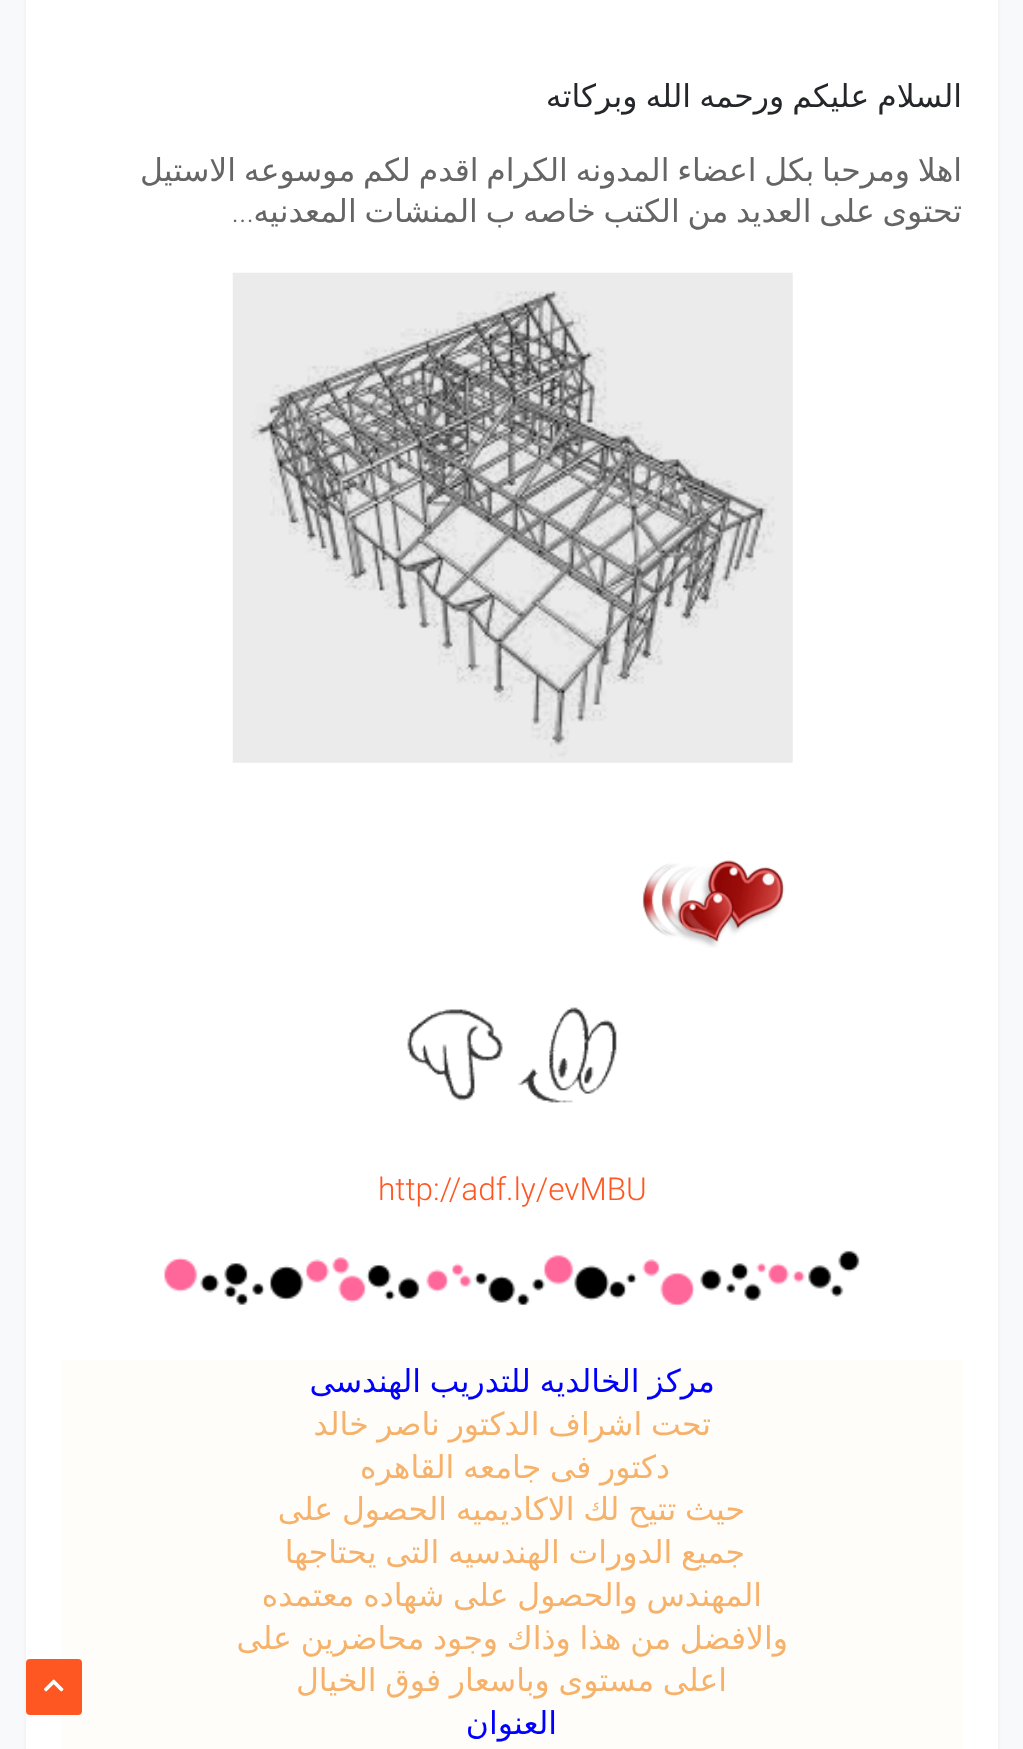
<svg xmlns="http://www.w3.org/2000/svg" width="1023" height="1749">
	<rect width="100%" height="100%" fill="#F8F9FA" />
	<rect x="26" y="-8" width="972" height="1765" fill="#000000" fill-opacity="0.05" filter="blur(2.5px)" />
	<rect x="26" y="0" width="972" height="1749" fill="#FFFFFF" />
	<text x="962" y="107" word-spacing="-2" font-family="DejaVu Sans" font-size="31.5" direction="rtl" fill="#24262A">السلام عليكم ورحمه الله وبركاته</text>
	<g font-family="DejaVu Sans" font-size="31.5" direction="rtl" fill="#656565">
		<text x="962" y="181" word-spacing="-2.25">اهلا ومرحبا بكل اعضاء المدونه الكرام اقدم لكم موسوعه الاستيل</text>
		<text x="962" y="222" word-spacing="-2.25">تحتوى على العديد من الكتب خاصه ب المنشات المعدنيه</text>
	</g>
	<text x="254" y="222" font-family="Roboto" font-size="31.5" font-weight="300" direction="rtl" fill="#656565">...</text>
	<image x="232" y="272" width="561" height="491" href="assets/img1.png" />
	<image x="642" y="860" width="143" height="88" href="assets/img2.png" />
	<image x="407" y="1007" width="210" height="96" href="assets/img3.png" />
	<text x="378" y="1200" font-family="Roboto" font-size="31.5" font-weight="300" fill="#FF5722">http://adf.ly/evMBU</text>
	<image x="163" y="1250" width="697" height="57" href="assets/img4.png" />
	<rect x="61" y="1360" width="902" height="389" fill="#FEFDFA" />
	<text x="715" y="1392" word-spacing="-1.25" font-family="DejaVu Sans" font-size="31.5" direction="rtl" fill="#0000FF">مركز الخالديه للتدريب الهندسى</text>
	<g font-family="DejaVu Sans" font-size="31.5" direction="rtl" fill="#F6B26B">
		<text x="711" y="1435" word-spacing="-1.25">تحت اشراف الدكتور ناصر خالد</text>
		<text x="670" y="1478" word-spacing="-1.25">دكتور فى جامعه القاهره</text>
		<text x="745" y="1520" word-spacing="-1.25">حيث تتيح لك الاكاديميه الحصول على</text>
		<text x="745" y="1563" word-spacing="-1.25">جميع الدورات الهندسيه التى يحتاجها</text>
		<text x="762" y="1606" word-spacing="-1.25">المهندس والحصول على شهاده معتمده</text>
		<text x="788" y="1649" word-spacing="-1.25">والافضل من هذا وذاك وجود محاضرين على</text>
		<text x="727" y="1691" word-spacing="-1.25">اعلى مستوى وباسعار فوق الخيال</text>
	</g>
	<text x="557" y="1734" font-family="DejaVu Sans" font-size="31.5" direction="rtl" fill="#0000FF">العنوان</text>
	<rect x="26" y="1659" width="56" height="56" rx="4" fill="#FF5722" />
	<image x="44" y="1679" width="20" height="13" href="assets/img5.png" />
</svg>
